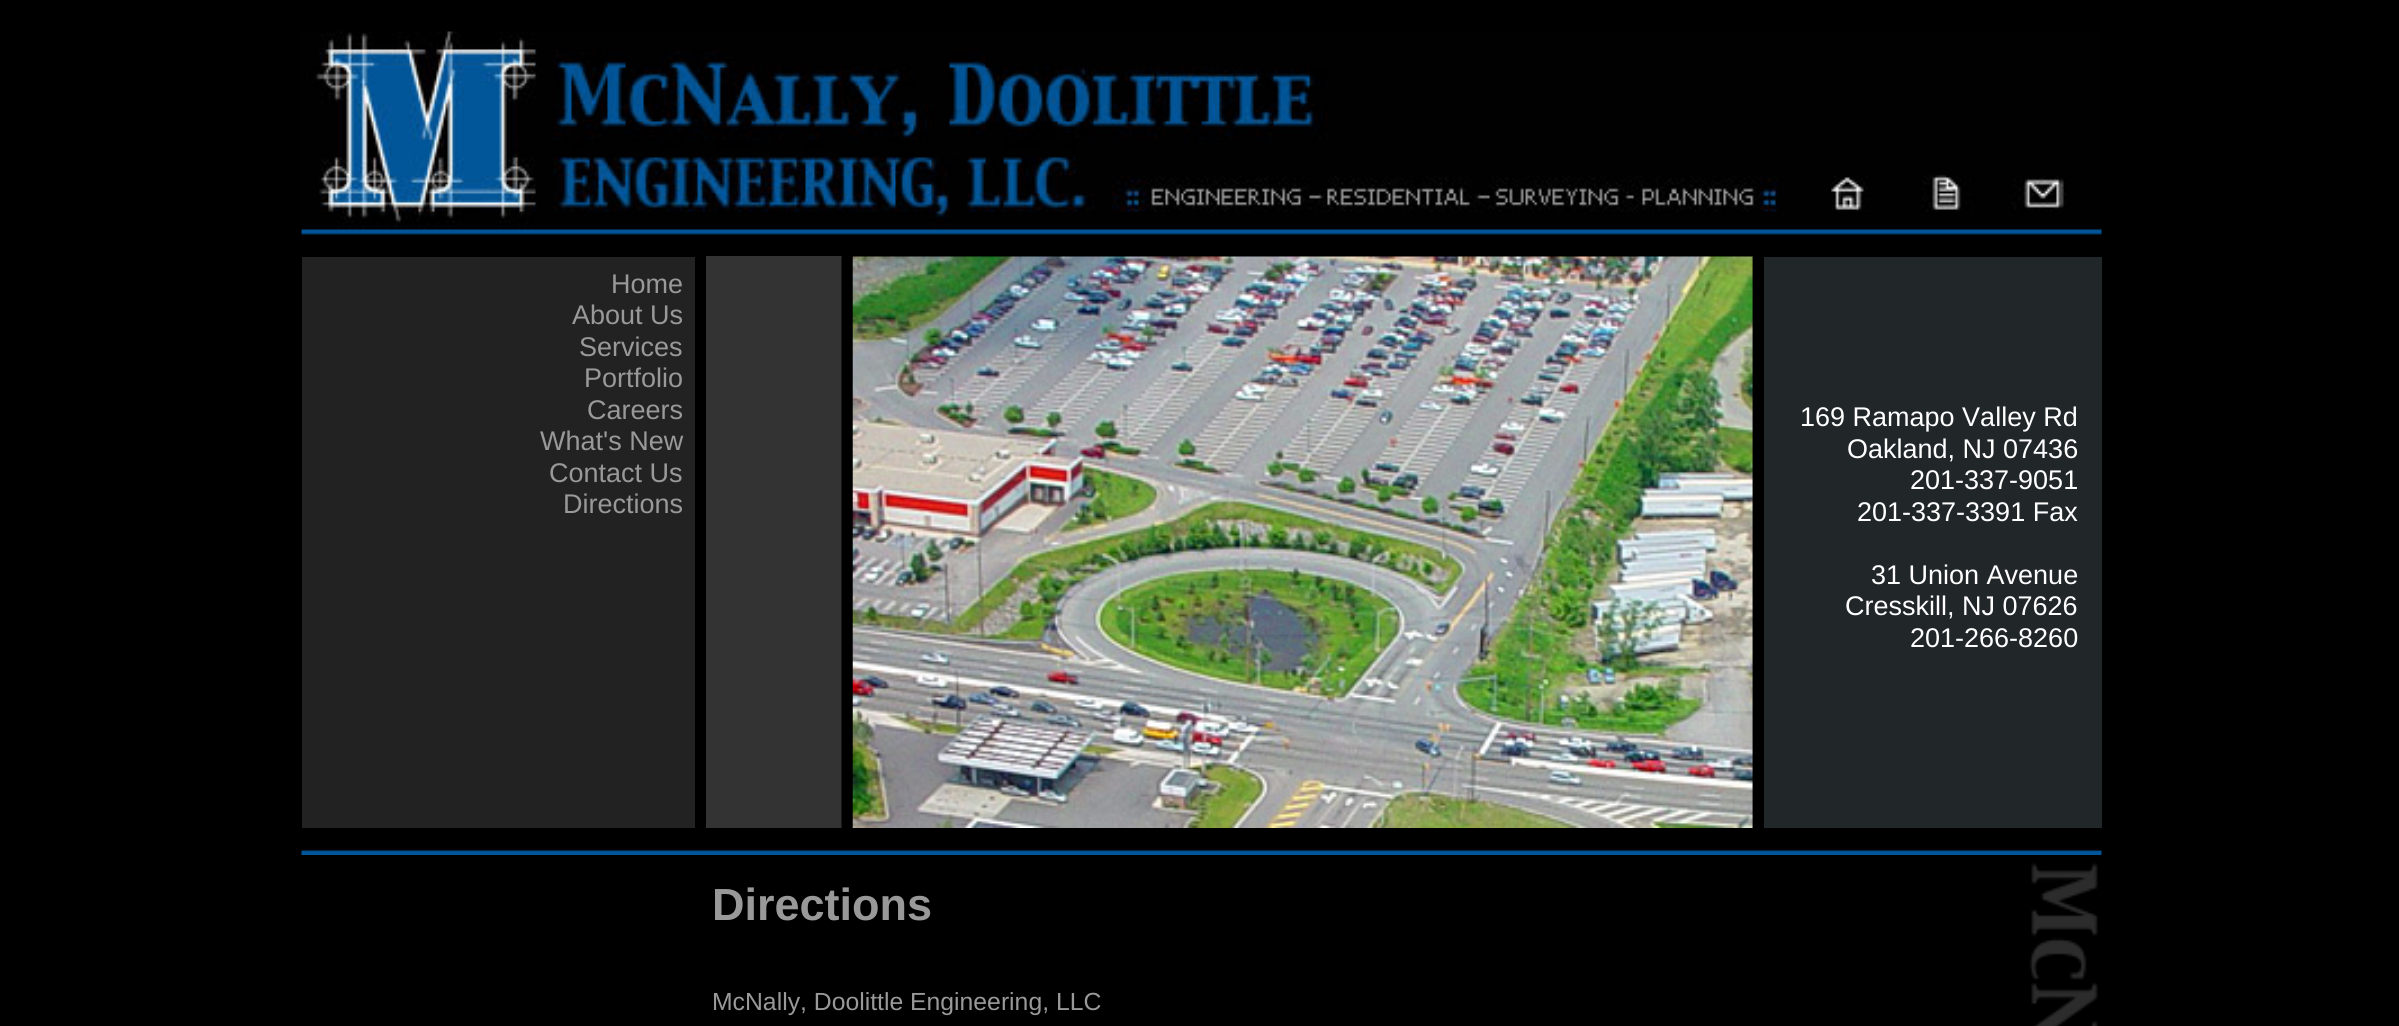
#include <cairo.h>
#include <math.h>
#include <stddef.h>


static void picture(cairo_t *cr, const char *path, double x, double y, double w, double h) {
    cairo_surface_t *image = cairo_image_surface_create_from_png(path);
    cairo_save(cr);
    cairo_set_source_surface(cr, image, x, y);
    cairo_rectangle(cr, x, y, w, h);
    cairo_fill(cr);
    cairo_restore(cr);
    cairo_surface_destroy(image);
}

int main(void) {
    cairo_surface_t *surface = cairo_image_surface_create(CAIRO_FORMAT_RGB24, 2399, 1026);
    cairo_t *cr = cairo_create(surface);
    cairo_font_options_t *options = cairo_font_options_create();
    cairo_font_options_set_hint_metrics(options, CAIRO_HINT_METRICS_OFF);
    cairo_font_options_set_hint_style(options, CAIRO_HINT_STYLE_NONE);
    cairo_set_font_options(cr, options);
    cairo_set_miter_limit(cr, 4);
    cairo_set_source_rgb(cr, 0, 0, 0);
    cairo_paint(cr);
    picture(cr, "img1.png", 301, 31, 1801, 204);
    cairo_set_source_rgb(cr, 0.2, 0.2, 0.2);
    cairo_rectangle(cr, 706, 256, 136, 572);
    cairo_fill(cr);
    picture(cr, "img2.png", 841, 256, 1, 572);
    picture(cr, "img3.png", 852, 256, 901, 572);
    cairo_set_source_rgb(cr, 0.133, 0.133, 0.133);
    cairo_rectangle(cr, 302, 257, 393, 571);
    cairo_fill(cr);
    cairo_select_font_face(cr, "Liberation Sans", CAIRO_FONT_SLANT_NORMAL, CAIRO_FONT_WEIGHT_NORMAL);
    cairo_set_font_size(cr, 27);
    cairo_set_source_rgb(cr, 0.6, 0.6, 0.6);
    cairo_move_to(cr, 611, 293);
    cairo_show_text(cr, "Home");
    cairo_move_to(cr, 572, 324);
    cairo_show_text(cr, "About Us");
    cairo_move_to(cr, 579, 356);
    cairo_show_text(cr, "Services");
    cairo_move_to(cr, 584, 387);
    cairo_show_text(cr, "Portfolio");
    cairo_move_to(cr, 587, 419);
    cairo_show_text(cr, "Careers");
    cairo_move_to(cr, 540, 450);
    cairo_show_text(cr, "What's New");
    cairo_move_to(cr, 549, 482);
    cairo_show_text(cr, "Contact Us");
    cairo_move_to(cr, 563, 513);
    cairo_show_text(cr, "Directions");
    picture(cr, "img4.png", 1752, 256, 1, 572);
    cairo_set_source_rgb(cr, 0.129, 0.149, 0.161);
    cairo_rectangle(cr, 1764, 257, 338, 571);
    cairo_fill(cr);
    cairo_set_source_rgb(cr, 1, 1, 1);
    cairo_move_to(cr, 1800, 426);
    cairo_show_text(cr, "169 Ramapo Valley Rd");
    cairo_move_to(cr, 1847, 458);
    cairo_show_text(cr, "Oakland, NJ 07436");
    cairo_move_to(cr, 1910, 489);
    cairo_show_text(cr, "201-337-9051");
    cairo_move_to(cr, 1857, 521);
    cairo_show_text(cr, "201-337-3391 Fax");
    cairo_move_to(cr, 1871, 584);
    cairo_show_text(cr, "31 Union Avenue");
    cairo_move_to(cr, 1845, 615);
    cairo_show_text(cr, "Cresskill, NJ 07626");
    cairo_move_to(cr, 1910, 647);
    cairo_show_text(cr, "201-266-8260");
    picture(cr, "img5.png", 301, 850, 1801, 5);
    cairo_select_font_face(cr, "Liberation Sans", CAIRO_FONT_SLANT_NORMAL, CAIRO_FONT_WEIGHT_BOLD);
    cairo_set_font_size(cr, 45);
    cairo_set_source_rgb(cr, 0.6, 0.6, 0.6);
    cairo_move_to(cr, 712, 920);
    cairo_show_text(cr, "Directions");
    cairo_select_font_face(cr, "Liberation Sans", CAIRO_FONT_SLANT_NORMAL, CAIRO_FONT_WEIGHT_NORMAL);
    cairo_set_font_size(cr, 24.75);
    cairo_move_to(cr, 712, 1010);
    cairo_show_text(cr, "McNally, Doolittle Engineering, LLC");
    picture(cr, "img6.png", 2029, 863, 69, 163);
    cairo_surface_write_to_png(surface, "page.png");
    cairo_font_options_destroy(options);
    cairo_destroy(cr);
    cairo_surface_destroy(surface);
    return 0;
}
